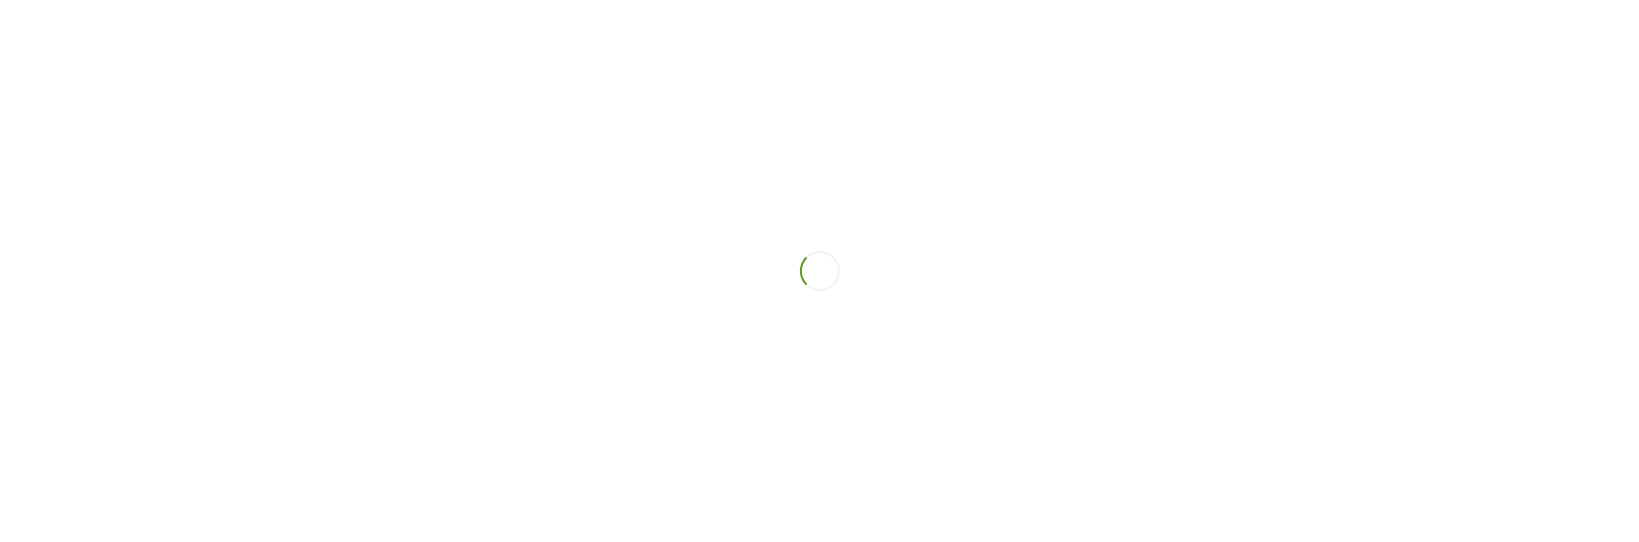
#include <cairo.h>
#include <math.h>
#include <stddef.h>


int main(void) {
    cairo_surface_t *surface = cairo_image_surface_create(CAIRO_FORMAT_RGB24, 1639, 542);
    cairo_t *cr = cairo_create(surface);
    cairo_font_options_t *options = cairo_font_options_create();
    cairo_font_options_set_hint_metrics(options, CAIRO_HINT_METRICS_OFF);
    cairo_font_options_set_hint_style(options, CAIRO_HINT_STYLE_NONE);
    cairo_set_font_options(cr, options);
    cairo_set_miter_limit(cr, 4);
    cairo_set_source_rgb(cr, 1, 1, 1);
    cairo_paint(cr);
    cairo_new_path(cr);
    cairo_move_to(cr, 806.5, 257.5);
    cairo_curve_to(cr, 811, 253, 817.5, 251, 823.5, 252.5);
    cairo_curve_to(cr, 846, 257, 842.5, 290, 820, 290);
    cairo_curve_to(cr, 815, 290, 810, 288, 806.5, 284.5);
    cairo_set_source_rgb(cr, 0.949, 0.949, 0.949);
    cairo_stroke(cr);
    cairo_new_path(cr);
    cairo_move_to(cr, 806.5, 284.5);
    cairo_curve_to(cr, 799, 277, 799, 265, 806.5, 257.5);
    cairo_set_source_rgb(cr, 0.384, 0.588, 0.133);
    cairo_stroke(cr);
    cairo_surface_write_to_png(surface, "page.png");
    cairo_font_options_destroy(options);
    cairo_destroy(cr);
    cairo_surface_destroy(surface);
    return 0;
}
